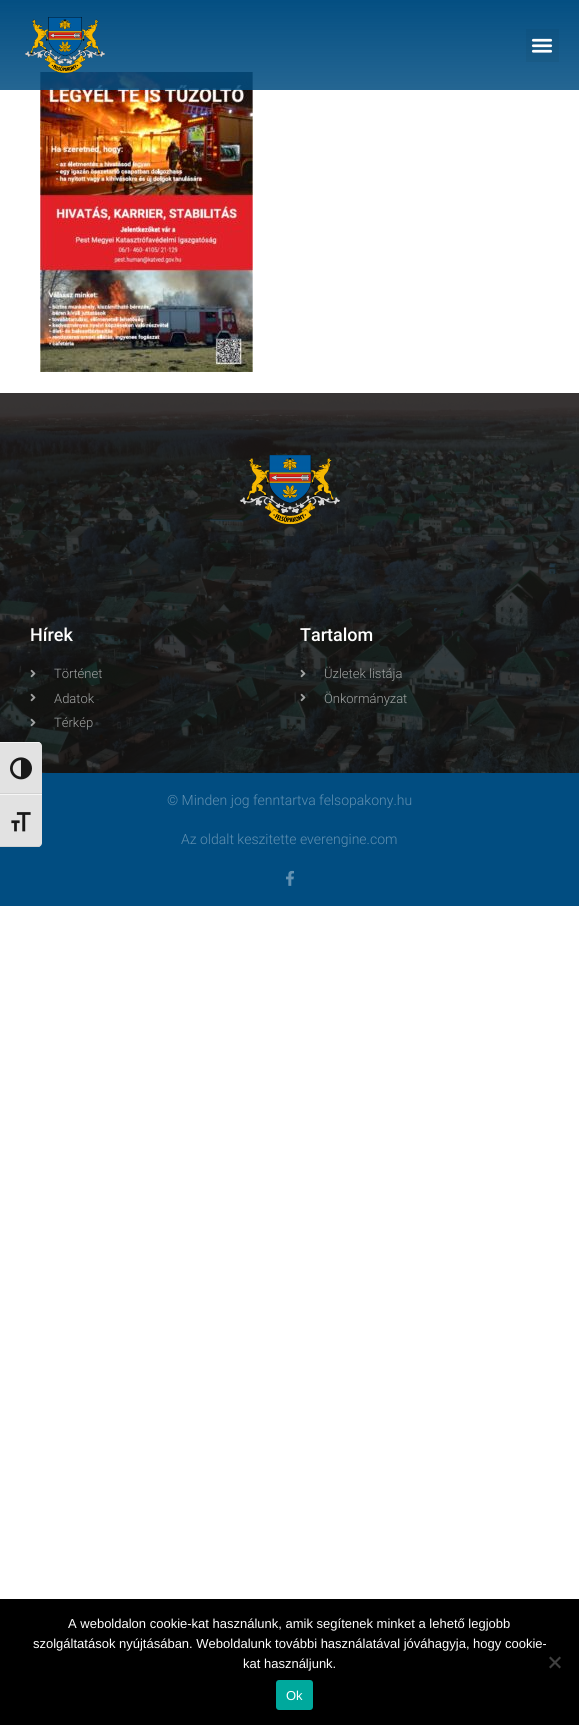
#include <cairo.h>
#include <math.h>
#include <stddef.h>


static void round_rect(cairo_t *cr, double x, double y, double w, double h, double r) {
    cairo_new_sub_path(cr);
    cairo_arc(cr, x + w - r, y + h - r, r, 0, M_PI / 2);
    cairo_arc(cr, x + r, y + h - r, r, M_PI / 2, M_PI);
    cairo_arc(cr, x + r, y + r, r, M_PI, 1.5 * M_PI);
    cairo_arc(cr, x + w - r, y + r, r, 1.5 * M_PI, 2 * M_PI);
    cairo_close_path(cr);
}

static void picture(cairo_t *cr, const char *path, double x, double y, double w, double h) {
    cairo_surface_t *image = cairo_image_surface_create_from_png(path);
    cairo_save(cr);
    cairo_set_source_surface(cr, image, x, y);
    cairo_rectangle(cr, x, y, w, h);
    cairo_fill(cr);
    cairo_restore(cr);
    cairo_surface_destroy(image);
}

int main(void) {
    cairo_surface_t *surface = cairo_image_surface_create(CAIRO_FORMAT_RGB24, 579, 1725);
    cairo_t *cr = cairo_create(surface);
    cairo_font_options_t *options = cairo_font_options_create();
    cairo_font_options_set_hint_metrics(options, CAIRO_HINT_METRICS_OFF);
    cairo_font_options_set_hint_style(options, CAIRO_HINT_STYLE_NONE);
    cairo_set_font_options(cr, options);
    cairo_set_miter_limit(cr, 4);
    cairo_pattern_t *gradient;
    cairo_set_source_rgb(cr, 1, 1, 1);
    cairo_paint(cr);
    picture(cr, "img3.png", 40, 72, 213, 300);
    gradient = cairo_pattern_create_linear(290, 90, 290, 0);
    cairo_pattern_add_color_stop_rgba(gradient, 0, 0.004, 0.302, 0.506, 0.86);
    cairo_pattern_add_color_stop_rgba(gradient, 1, 0.004, 0.302, 0.506, 0.99);
    cairo_set_source(cr, gradient);
    cairo_pattern_destroy(gradient);
    cairo_rectangle(cr, 0, 0, 579, 90);
    cairo_fill(cr);
    picture(cr, "img1.png", 25, 17, 80, 56);
    cairo_set_source_rgba(cr, 0, 0, 0, 0.05);
    cairo_rectangle(cr, 526, 29, 33, 33);
    cairo_fill(cr);
    picture(cr, "img2.png", 531, 38, 22, 15);
    picture(cr, "img6.png", 0, 393, 579, 380);
    cairo_set_source_rgb(cr, 0.004, 0.302, 0.506);
    cairo_rectangle(cr, 0, 773, 579, 133);
    cairo_fill(cr);
    cairo_set_source_rgb(cr, 0.886, 0.886, 0.886);
    cairo_new_path(cr);
    cairo_move_to(cr, 0, 742);
    cairo_line_to(cr, 38, 742);
    cairo_curve_to(cr, 40, 742, 42, 744, 42, 746);
    cairo_line_to(cr, 42, 794);
    cairo_line_to(cr, 0, 794);
    cairo_close_path(cr);
    cairo_fill(cr);
    cairo_set_source_rgb(cr, 0.961, 0.961, 0.961);
    cairo_new_path(cr);
    cairo_move_to(cr, 0, 742);
    cairo_line_to(cr, 0, 743);
    cairo_line_to(cr, 38, 743);
    cairo_curve_to(cr, 40, 743, 42, 744, 42, 746);
    cairo_curve_to(cr, 42, 744, 40, 742, 38, 742);
    cairo_close_path(cr);
    cairo_fill(cr);
    cairo_set_source_rgb(cr, 0.824, 0.824, 0.824);
    cairo_rectangle(cr, 0, 793, 42, 1);
    cairo_fill(cr);
    picture(cr, "img4.png", 10, 757, 22, 23);
    cairo_set_source_rgb(cr, 0.886, 0.886, 0.886);
    cairo_new_path(cr);
    cairo_move_to(cr, 0, 794);
    cairo_line_to(cr, 42, 794);
    cairo_line_to(cr, 42, 843);
    cairo_curve_to(cr, 42, 845, 40, 847, 38, 847);
    cairo_line_to(cr, 0, 847);
    cairo_close_path(cr);
    cairo_fill(cr);
    cairo_set_source_rgb(cr, 0.961, 0.961, 0.961);
    cairo_rectangle(cr, 0, 794, 42, 1);
    cairo_fill(cr);
    cairo_set_source_rgb(cr, 0.824, 0.824, 0.824);
    cairo_new_path(cr);
    cairo_move_to(cr, 0, 846);
    cairo_line_to(cr, 0, 847);
    cairo_line_to(cr, 38, 847);
    cairo_curve_to(cr, 40, 847, 42, 845, 42, 843);
    cairo_curve_to(cr, 42, 845, 40, 846, 38, 846);
    cairo_close_path(cr);
    cairo_fill(cr);
    picture(cr, "img5.png", 11, 812, 20, 20);
    picture(cr, "img7.png", 240, 455, 100, 69);
    cairo_select_font_face(cr, "Roboto Medium", CAIRO_FONT_SLANT_NORMAL, CAIRO_FONT_WEIGHT_NORMAL);
    cairo_set_font_size(cr, 18);
    cairo_set_source_rgb(cr, 1, 1, 1);
    cairo_move_to(cr, 30, 641);
    cairo_show_text(cr, "Hírek");
    picture(cr, "img8.png", 30, 669, 6, 9);
    cairo_select_font_face(cr, "Roboto Light", CAIRO_FONT_SLANT_NORMAL, CAIRO_FONT_WEIGHT_NORMAL);
    cairo_set_font_size(cr, 13);
    cairo_set_source_rgb(cr, 0.631, 0.643, 0.639);
    cairo_move_to(cr, 54, 678);
    cairo_show_text(cr, "Történet");
    picture(cr, "img9.png", 30, 693, 6, 9);
    cairo_move_to(cr, 54, 703);
    cairo_show_text(cr, "Adatok");
    picture(cr, "img10.png", 30, 718, 6, 9);
    cairo_move_to(cr, 54, 727);
    cairo_show_text(cr, "Térkép");
    cairo_select_font_face(cr, "Roboto Medium", CAIRO_FONT_SLANT_NORMAL, CAIRO_FONT_WEIGHT_NORMAL);
    cairo_set_font_size(cr, 18);
    cairo_set_source_rgb(cr, 1, 1, 1);
    cairo_move_to(cr, 300, 641);
    cairo_show_text(cr, "Tartalom");
    picture(cr, "img11.png", 300, 669, 6, 9);
    cairo_select_font_face(cr, "Roboto Light", CAIRO_FONT_SLANT_NORMAL, CAIRO_FONT_WEIGHT_NORMAL);
    cairo_set_font_size(cr, 13);
    cairo_set_source_rgb(cr, 0.631, 0.643, 0.639);
    cairo_move_to(cr, 324, 678);
    cairo_show_text(cr, "Üzletek listája");
    picture(cr, "img12.png", 300, 693, 6, 9);
    cairo_move_to(cr, 324, 703);
    cairo_show_text(cr, "Önkormányzat");
    cairo_set_font_size(cr, 14);
    cairo_set_source_rgb(cr, 0.373, 0.561, 0.69);
    cairo_move_to(cr, 167, 805);
    cairo_show_text(cr, "© Minden jog fenntartva felsopakony.hu");
    cairo_move_to(cr, 181, 844);
    cairo_show_text(cr, "Az oldalt keszitette everengine.com");
    picture(cr, "img13.png", 286, 870, 8, 16);
    cairo_set_source_rgb(cr, 0, 0, 0);
    cairo_rectangle(cr, 0, 1599, 579, 126);
    cairo_fill(cr);
    cairo_select_font_face(cr, "Liberation Sans", CAIRO_FONT_SLANT_NORMAL, CAIRO_FONT_WEIGHT_NORMAL);
    cairo_set_font_size(cr, 13);
    cairo_set_source_rgb(cr, 1, 1, 1);
    cairo_move_to(cr, 68, 1628);
    cairo_show_text(cr, "A weboldalon cookie-kat használunk, amik segítenek minket a lehető legjobb");
    cairo_move_to(cr, 33, 1648);
    cairo_show_text(cr, "szolgáltatások nyújtásában. Weboldalunk további használatával jóváhagyja, hogy cookie-");
    cairo_move_to(cr, 243, 1668);
    cairo_show_text(cr, "kat használjunk.");
    cairo_set_source_rgb(cr, 0.251, 0.251, 0.251);
    cairo_new_path(cr);
    cairo_move_to(cr, 559.5, 1656.5);
    cairo_line_to(cr, 561, 1658);
    cairo_line_to(cr, 550.5, 1668.5);
    cairo_line_to(cr, 549, 1667);
    cairo_close_path(cr);
    cairo_fill(cr);
    cairo_new_path(cr);
    cairo_move_to(cr, 549, 1658);
    cairo_line_to(cr, 550.5, 1656.5);
    cairo_line_to(cr, 561, 1667);
    cairo_line_to(cr, 559.5, 1668.5);
    cairo_close_path(cr);
    cairo_fill(cr);
    cairo_set_source_rgb(cr, 0, 0.663, 0.616);
    round_rect(cr, 276, 1680, 37, 30, 3);
    cairo_fill(cr);
    cairo_set_source_rgb(cr, 1, 1, 1);
    cairo_move_to(cr, 286, 1700);
    cairo_show_text(cr, "Ok");
    cairo_surface_write_to_png(surface, "page.png");
    cairo_font_options_destroy(options);
    cairo_destroy(cr);
    cairo_surface_destroy(surface);
    return 0;
}
